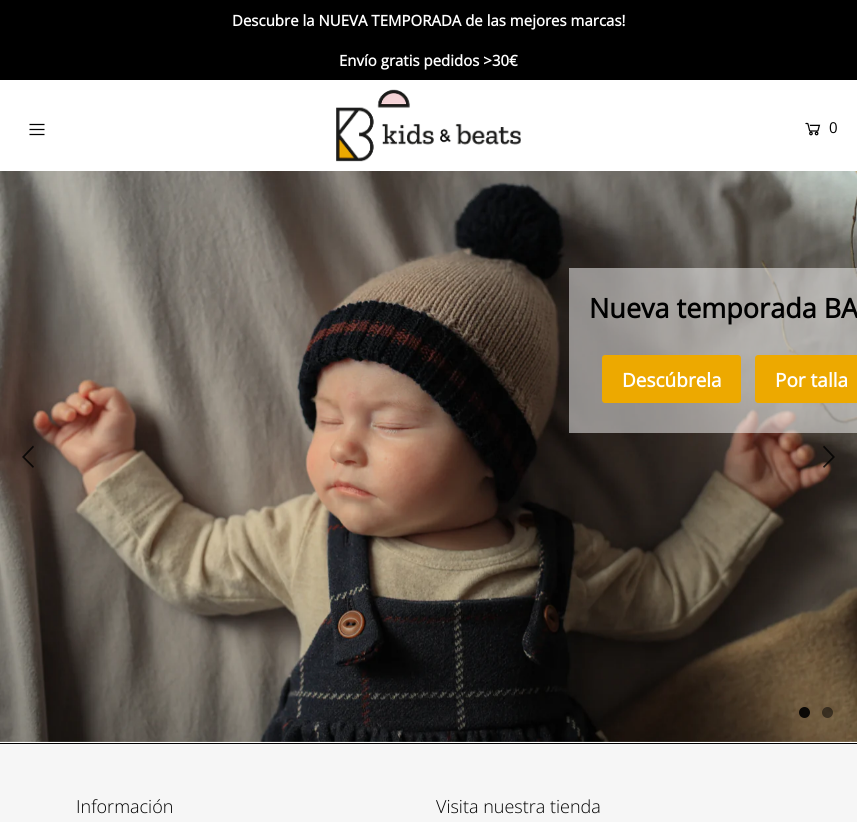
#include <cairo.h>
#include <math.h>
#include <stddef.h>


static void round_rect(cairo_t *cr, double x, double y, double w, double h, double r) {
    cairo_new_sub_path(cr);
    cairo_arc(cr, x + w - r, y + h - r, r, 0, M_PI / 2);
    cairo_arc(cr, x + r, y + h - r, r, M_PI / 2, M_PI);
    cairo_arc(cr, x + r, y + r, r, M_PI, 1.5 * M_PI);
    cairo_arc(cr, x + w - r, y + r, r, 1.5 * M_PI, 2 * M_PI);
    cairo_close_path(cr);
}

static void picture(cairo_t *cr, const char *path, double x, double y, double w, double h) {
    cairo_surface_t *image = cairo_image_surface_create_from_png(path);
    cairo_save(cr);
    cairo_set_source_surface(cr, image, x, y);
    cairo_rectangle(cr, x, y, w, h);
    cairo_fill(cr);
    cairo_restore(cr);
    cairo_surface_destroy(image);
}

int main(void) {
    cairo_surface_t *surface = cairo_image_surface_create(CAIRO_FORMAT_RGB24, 857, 822);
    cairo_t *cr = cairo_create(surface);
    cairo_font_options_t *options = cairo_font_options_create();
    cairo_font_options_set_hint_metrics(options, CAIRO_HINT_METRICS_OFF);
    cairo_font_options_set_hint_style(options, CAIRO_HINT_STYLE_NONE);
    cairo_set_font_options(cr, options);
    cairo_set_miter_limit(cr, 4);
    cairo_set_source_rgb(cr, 1, 1, 1);
    cairo_paint(cr);
    cairo_set_source_rgb(cr, 0, 0, 0);
    cairo_rectangle(cr, 0, 0, 857, 80);
    cairo_fill(cr);
    cairo_select_font_face(cr, "Open Sans", CAIRO_FONT_SLANT_NORMAL, CAIRO_FONT_WEIGHT_BOLD);
    cairo_set_font_size(cr, 15);
    cairo_set_source_rgb(cr, 1, 1, 1);
    cairo_move_to(cr, 232, 26);
    cairo_show_text(cr, "Descubre la NUEVA TEMPORADA de las mejores marcas!");
    cairo_move_to(cr, 339, 66);
    cairo_show_text(cr, "Envío gratis pedidos >30€");
    picture(cr, "img1.png", 29, 123, 16, 13);
    picture(cr, "img2.png", 336, 89, 185, 73);
    picture(cr, "img3.png", 805, 122, 16, 14);
    cairo_select_font_face(cr, "Open Sans", CAIRO_FONT_SLANT_NORMAL, CAIRO_FONT_WEIGHT_NORMAL);
    cairo_set_source_rgb(cr, 0, 0, 0);
    cairo_move_to(cr, 829, 133);
    cairo_show_text(cr, "0");
    picture(cr, "img4.png", 0, 171, 857, 571);
    cairo_set_source_rgba(cr, 1, 1, 1, 0.5);
    cairo_rectangle(cr, 569, 268, 288, 165);
    cairo_fill(cr);
    cairo_select_font_face(cr, "Open Sans", CAIRO_FONT_SLANT_NORMAL, CAIRO_FONT_WEIGHT_BOLD);
    cairo_set_font_size(cr, 27);
    cairo_set_source_rgb(cr, 0, 0, 0);
    cairo_move_to(cr, 589, 318);
    cairo_show_text(cr, "Nueva temporada BA");
    cairo_set_source_rgb(cr, 0.929, 0.663, 0);
    round_rect(cr, 602, 355, 139, 48, 3);
    cairo_fill(cr);
    cairo_set_font_size(cr, 19);
    cairo_set_source_rgb(cr, 1, 1, 1);
    cairo_move_to(cr, 622, 387);
    cairo_show_text(cr, "Descúbrela");
    cairo_set_source_rgb(cr, 0.929, 0.663, 0);
    cairo_new_path(cr);
    cairo_move_to(cr, 758, 355);
    cairo_line_to(cr, 857, 355);
    cairo_line_to(cr, 857, 403);
    cairo_line_to(cr, 758, 403);
    cairo_curve_to(cr, 756.5, 403, 755, 401.5, 755, 400);
    cairo_line_to(cr, 755, 358);
    cairo_curve_to(cr, 755, 356.5, 756.5, 355, 758, 355);
    cairo_close_path(cr);
    cairo_fill(cr);
    cairo_set_source_rgb(cr, 1, 1, 1);
    cairo_move_to(cr, 775, 387);
    cairo_show_text(cr, "Por talla");
    cairo_set_source_rgba(cr, 0, 0, 0, 0.8);
    cairo_new_path(cr);
    cairo_move_to(cr, 33, 445.5);
    cairo_line_to(cr, 34, 447);
    cairo_line_to(cr, 24.5, 457);
    cairo_line_to(cr, 34, 466.5);
    cairo_line_to(cr, 33, 468);
    cairo_line_to(cr, 22, 457);
    cairo_close_path(cr);
    cairo_fill(cr);
    cairo_new_path(cr);
    cairo_move_to(cr, 824, 445.5);
    cairo_line_to(cr, 835, 457);
    cairo_line_to(cr, 824, 468);
    cairo_line_to(cr, 823, 466.5);
    cairo_line_to(cr, 832.5, 457);
    cairo_line_to(cr, 823, 447);
    cairo_close_path(cr);
    cairo_fill(cr);
    cairo_set_source_rgba(cr, 0, 0, 0, 0.9);
    cairo_arc(cr, 804.5, 712.5, 5.5, 0, 2 * M_PI);
    cairo_fill(cr);
    cairo_set_source_rgba(cr, 0, 0, 0, 0.5);
    cairo_arc(cr, 827.5, 712.5, 5.5, 0, 2 * M_PI);
    cairo_fill(cr);
    cairo_set_source_rgb(cr, 0.961, 0.961, 0.961);
    cairo_rectangle(cr, 0, 744, 857, 78);
    cairo_fill(cr);
    cairo_set_source_rgb(cr, 0, 0, 0);
    cairo_rectangle(cr, 0, 743, 857, 1);
    cairo_fill(cr);
    cairo_select_font_face(cr, "Open Sans Light", CAIRO_FONT_SLANT_NORMAL, CAIRO_FONT_WEIGHT_NORMAL);
    cairo_set_font_size(cr, 18);
    cairo_move_to(cr, 76, 813);
    cairo_show_text(cr, "Información");
    cairo_move_to(cr, 436, 813);
    cairo_show_text(cr, "Visita nuestra tienda");
    cairo_surface_write_to_png(surface, "page.png");
    cairo_font_options_destroy(options);
    cairo_destroy(cr);
    cairo_surface_destroy(surface);
    return 0;
}
